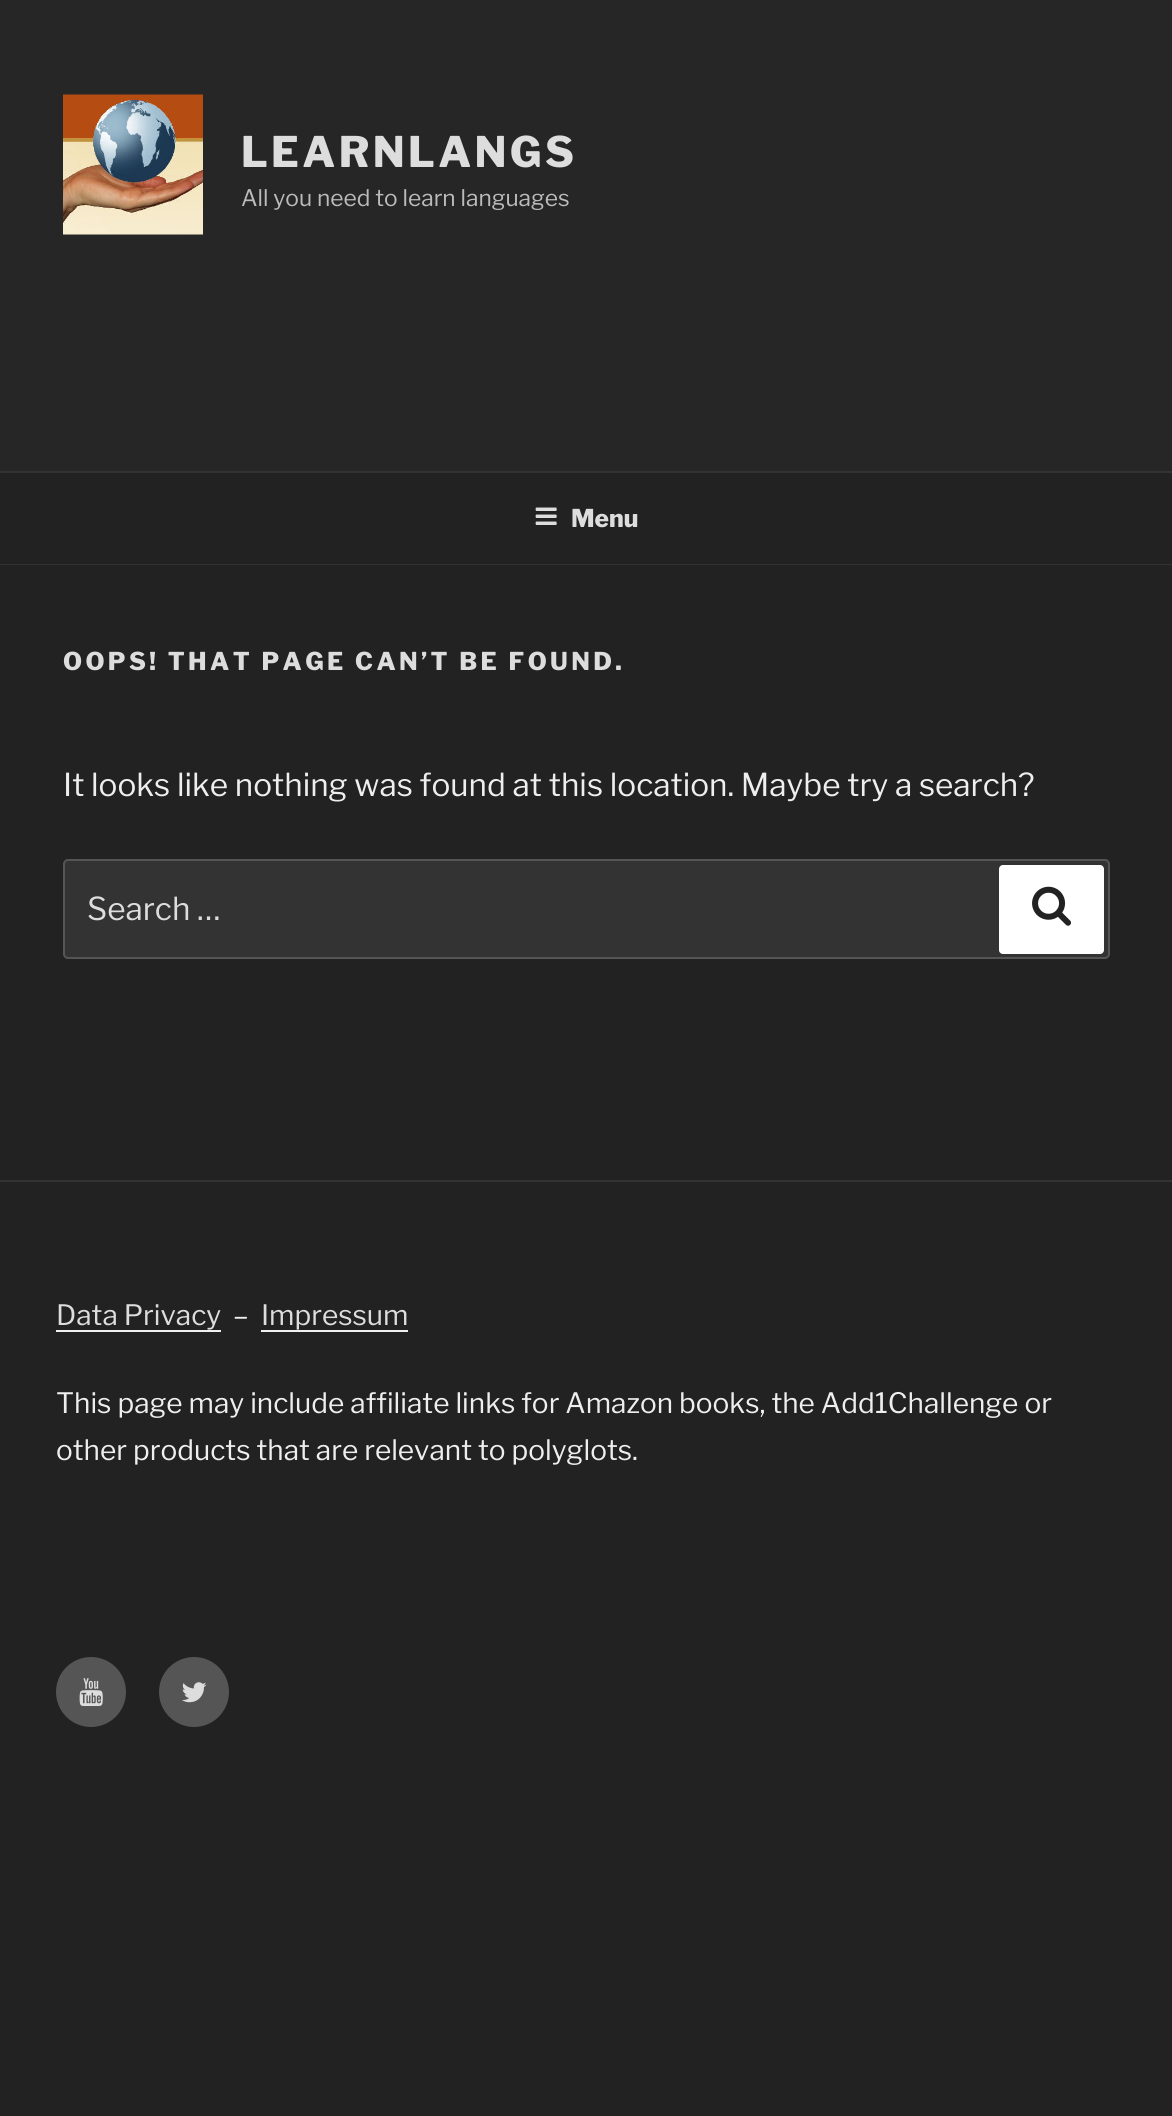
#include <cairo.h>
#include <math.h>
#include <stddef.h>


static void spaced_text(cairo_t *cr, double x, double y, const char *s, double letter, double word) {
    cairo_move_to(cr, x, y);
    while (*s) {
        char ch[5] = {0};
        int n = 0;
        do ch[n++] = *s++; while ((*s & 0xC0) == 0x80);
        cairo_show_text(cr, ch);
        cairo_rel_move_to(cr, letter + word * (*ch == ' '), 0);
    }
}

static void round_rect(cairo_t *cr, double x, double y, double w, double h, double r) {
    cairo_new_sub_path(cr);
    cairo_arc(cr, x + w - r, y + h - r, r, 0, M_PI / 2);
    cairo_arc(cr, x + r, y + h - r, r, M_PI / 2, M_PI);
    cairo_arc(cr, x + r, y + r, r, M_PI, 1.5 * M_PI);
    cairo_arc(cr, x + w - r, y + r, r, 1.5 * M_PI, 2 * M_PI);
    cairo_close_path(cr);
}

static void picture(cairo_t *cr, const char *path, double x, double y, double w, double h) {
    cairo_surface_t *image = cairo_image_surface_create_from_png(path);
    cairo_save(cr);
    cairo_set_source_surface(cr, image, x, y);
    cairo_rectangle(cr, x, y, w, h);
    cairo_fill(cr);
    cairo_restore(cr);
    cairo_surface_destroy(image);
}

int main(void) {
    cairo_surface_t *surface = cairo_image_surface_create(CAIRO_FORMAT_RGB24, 1172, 2116);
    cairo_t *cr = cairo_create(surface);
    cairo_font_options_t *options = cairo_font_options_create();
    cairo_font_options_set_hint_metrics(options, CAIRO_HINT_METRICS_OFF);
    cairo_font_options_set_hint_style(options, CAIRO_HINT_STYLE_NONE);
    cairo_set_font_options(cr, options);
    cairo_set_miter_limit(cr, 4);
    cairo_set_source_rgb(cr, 0.133, 0.133, 0.133);
    cairo_paint(cr);
    cairo_set_source_rgb(cr, 0.149, 0.149, 0.149);
    cairo_rectangle(cr, 0, 0, 1172, 471);
    cairo_fill(cr);
    picture(cr, "img1.png", 63, 94, 140, 141);
    cairo_select_font_face(cr, "Libre Franklin ExtraBold", CAIRO_FONT_SLANT_NORMAL, CAIRO_FONT_WEIGHT_NORMAL);
    cairo_set_font_size(cr, 42);
    cairo_set_source_rgb(cr, 0.867, 0.867, 0.867);
    spaced_text(cr, 241, 167, "LEARNLANGS", 3.4, 0);
    cairo_select_font_face(cr, "Libre Franklin", CAIRO_FONT_SLANT_NORMAL, CAIRO_FONT_WEIGHT_NORMAL);
    cairo_set_font_size(cr, 22.75);
    cairo_set_source_rgb(cr, 0.733, 0.733, 0.733);
    cairo_move_to(cr, 241, 206);
    cairo_show_text(cr, "All you need to learn languages");
    cairo_set_source_rgb(cr, 0.2, 0.2, 0.2);
    cairo_rectangle(cr, 0, 471, 1172, 2);
    cairo_fill(cr);
    cairo_rectangle(cr, 0, 564, 1172, 1);
    cairo_fill(cr);
    picture(cr, "img2.png", 535, 507, 22, 18);
    cairo_select_font_face(cr, "Libre Franklin ExtraBold", CAIRO_FONT_SLANT_NORMAL, CAIRO_FONT_WEIGHT_NORMAL);
    cairo_set_font_size(cr, 24.5);
    cairo_set_source_rgb(cr, 0.867, 0.867, 0.867);
    cairo_move_to(cr, 571, 527);
    cairo_show_text(cr, "Menu");
    spaced_text(cr, 63, 670, "OOPS! THAT PAGE CAN’T BE FOUND.", 3.4, 0);
    cairo_select_font_face(cr, "Libre Franklin", CAIRO_FONT_SLANT_NORMAL, CAIRO_FONT_WEIGHT_NORMAL);
    cairo_set_font_size(cr, 31.5);
    cairo_set_source_rgb(cr, 0.933, 0.933, 0.933);
    cairo_move_to(cr, 63, 796);
    cairo_show_text(cr, "It looks like nothing was found at this location. Maybe try a search?");
    cairo_set_source_rgb(cr, 0.2, 0.2, 0.2);
    round_rect(cr, 64, 860, 1045, 98, 4);
    cairo_fill_preserve(cr);
    cairo_set_source_rgb(cr, 0.333, 0.333, 0.333);
    cairo_stroke(cr);
    cairo_set_source_rgb(cr, 0.867, 0.867, 0.867);
    cairo_move_to(cr, 87, 920);
    cairo_show_text(cr, "Search …");
    cairo_set_source_rgb(cr, 1, 1, 1);
    round_rect(cr, 999, 865, 105, 89, 4);
    cairo_fill(cr);
    picture(cr, "img3.png", 1032, 886, 39, 40);
    cairo_set_source_rgb(cr, 0.2, 0.2, 0.2);
    cairo_rectangle(cr, 0, 1180, 1172, 2);
    cairo_fill(cr);
    cairo_set_font_size(cr, 28);
    cairo_set_source_rgb(cr, 0.867, 0.867, 0.867);
    cairo_move_to(cr, 56, 1325);
    cairo_show_text(cr, "Data Privacy");
    cairo_set_source_rgb(cr, 0.941, 0.941, 0.941);
    cairo_rectangle(cr, 56, 1330, 165, 2);
    cairo_fill(cr);
    cairo_set_source_rgb(cr, 0.933, 0.933, 0.933);
    cairo_move_to(cr, 233, 1325);
    cairo_show_text(cr, "–");
    cairo_set_source_rgb(cr, 0.867, 0.867, 0.867);
    cairo_move_to(cr, 261, 1325);
    cairo_show_text(cr, "Impressum");
    cairo_set_source_rgb(cr, 0.941, 0.941, 0.941);
    cairo_rectangle(cr, 261, 1330, 147, 2);
    cairo_fill(cr);
    cairo_set_source_rgb(cr, 0.933, 0.933, 0.933);
    cairo_move_to(cr, 56, 1413);
    cairo_show_text(cr, "This page may include affiliate links for Amazon books, the Add1Challenge or");
    cairo_move_to(cr, 56, 1460);
    cairo_show_text(cr, "other products that are relevant to polyglots.");
    cairo_set_source_rgb(cr, 0.333, 0.333, 0.333);
    cairo_new_path(cr);
    cairo_arc(cr, 91, 1692, 35, 0, 2 * M_PI);
    cairo_fill(cr);
    picture(cr, "img4.png", 79, 1678, 24, 28);
    cairo_arc(cr, 194, 1692, 35, 0, 2 * M_PI);
    cairo_fill(cr);
    picture(cr, "img5.png", 182, 1682, 25, 21);
    cairo_surface_write_to_png(surface, "page.png");
    cairo_font_options_destroy(options);
    cairo_destroy(cr);
    cairo_surface_destroy(surface);
    return 0;
}
